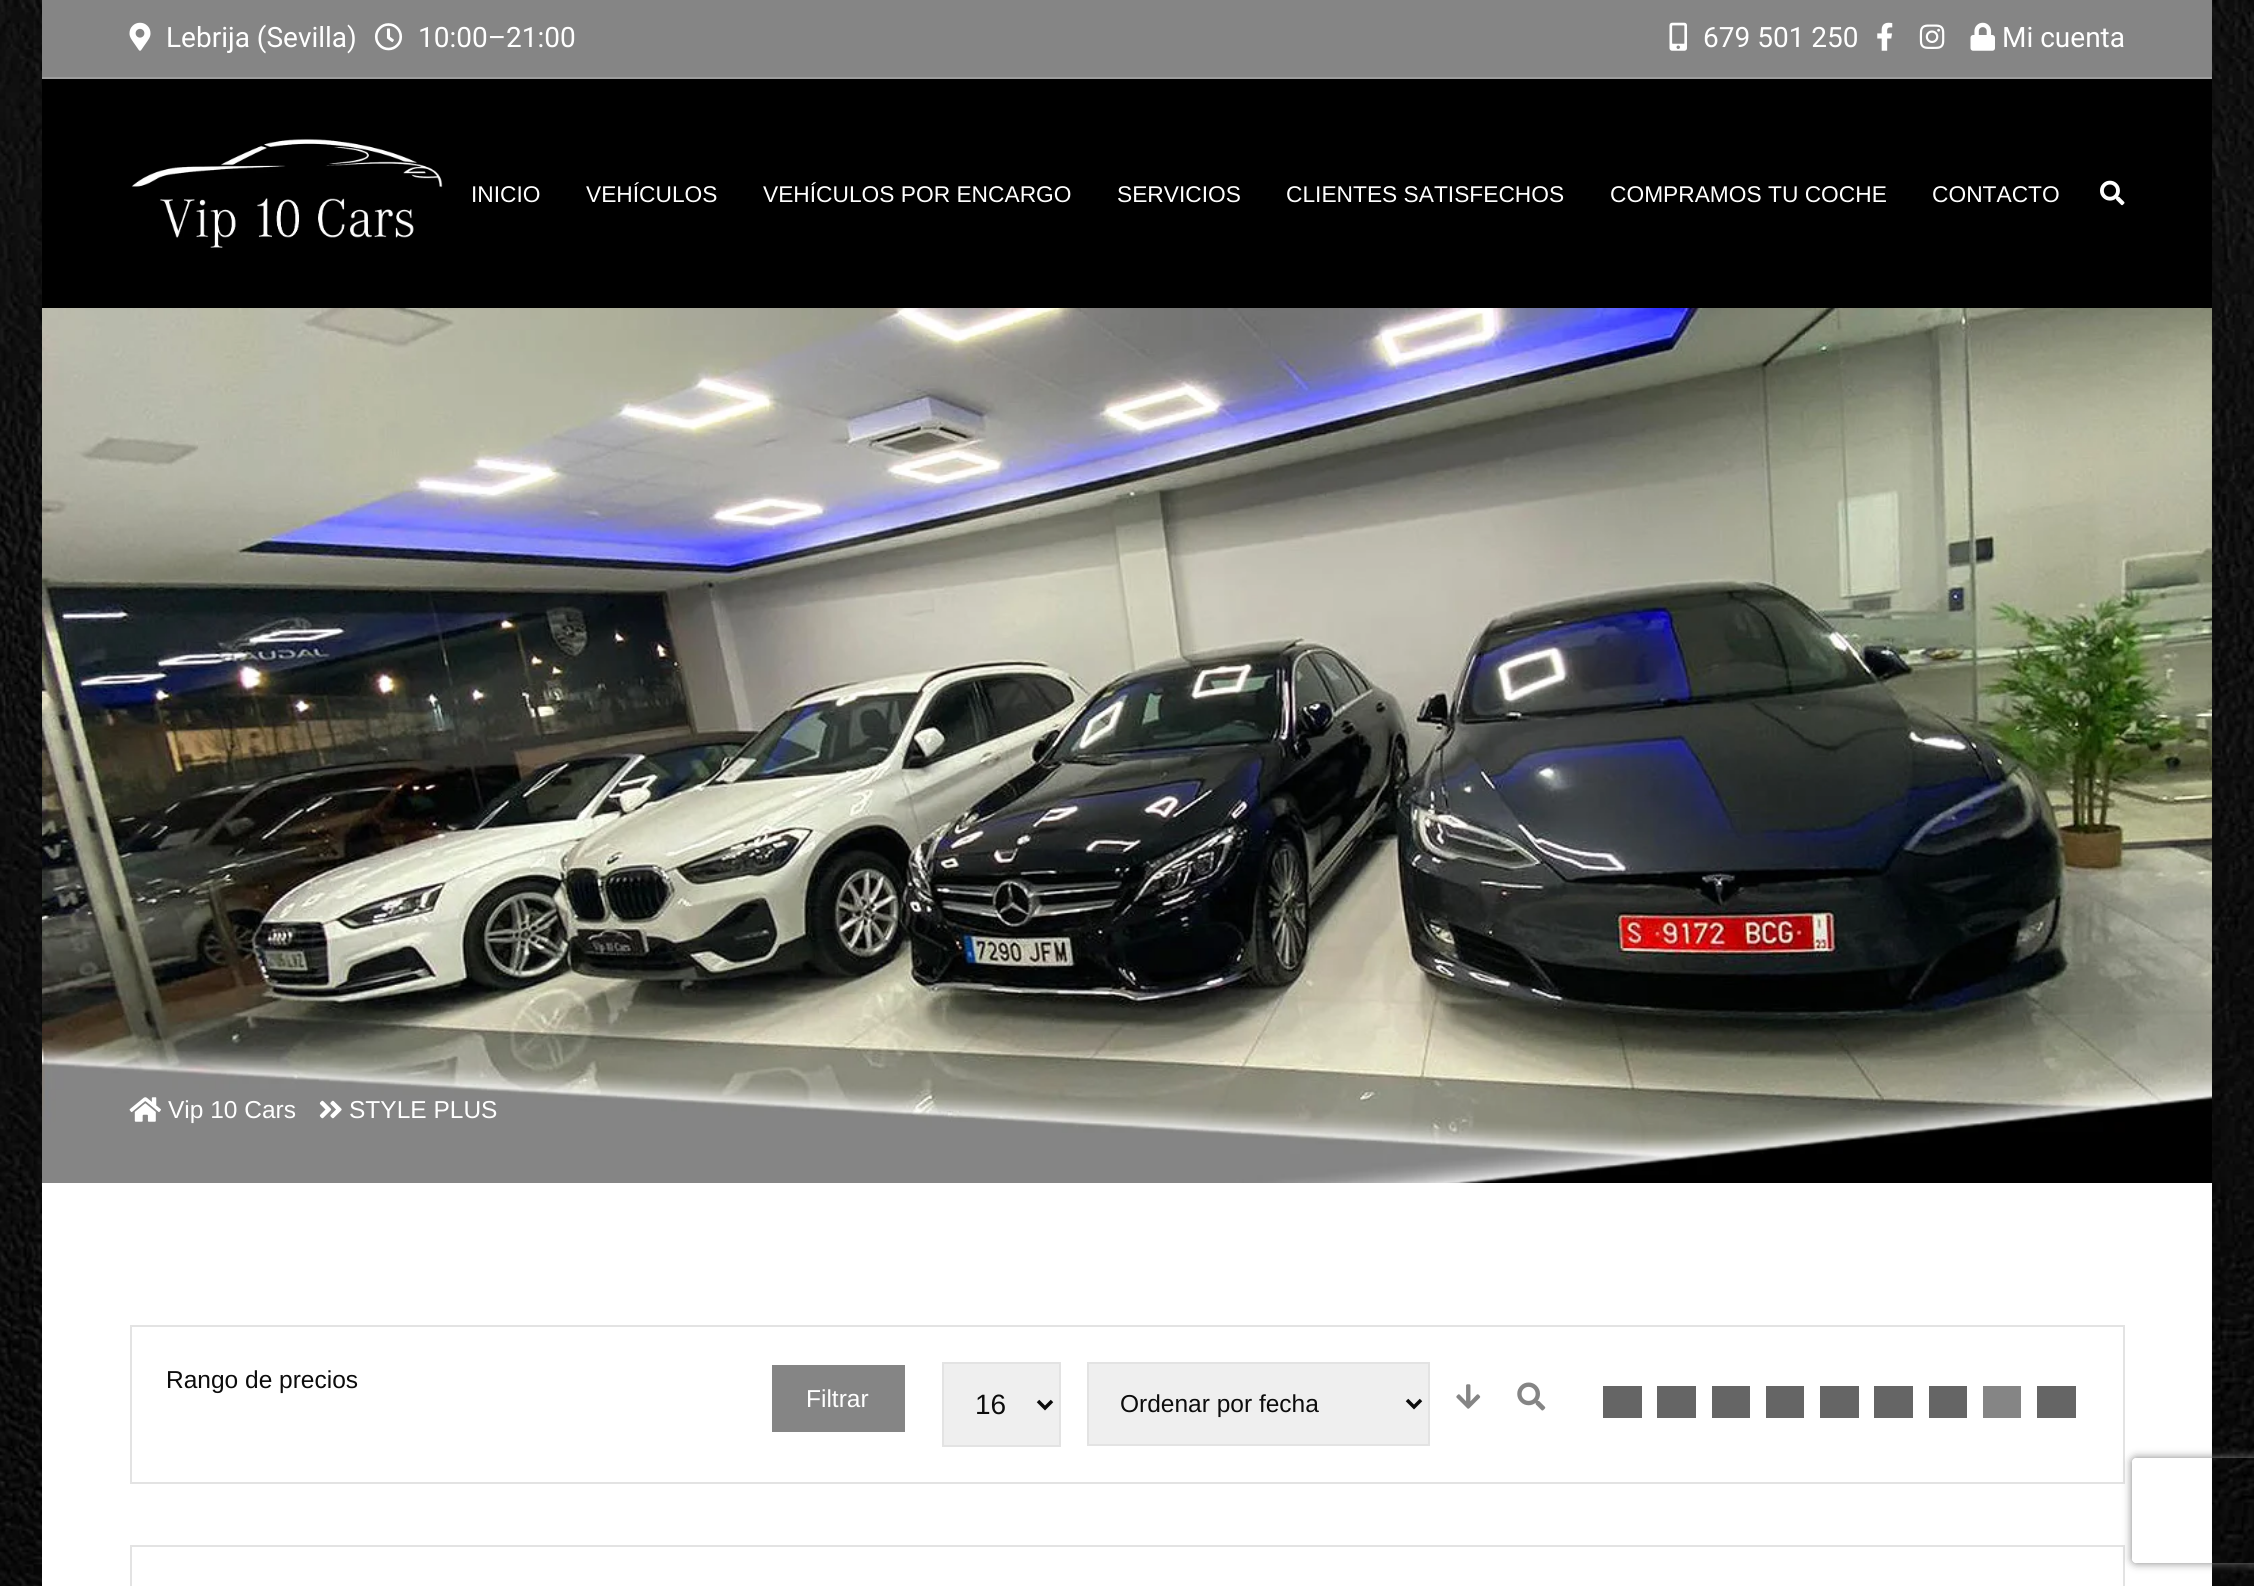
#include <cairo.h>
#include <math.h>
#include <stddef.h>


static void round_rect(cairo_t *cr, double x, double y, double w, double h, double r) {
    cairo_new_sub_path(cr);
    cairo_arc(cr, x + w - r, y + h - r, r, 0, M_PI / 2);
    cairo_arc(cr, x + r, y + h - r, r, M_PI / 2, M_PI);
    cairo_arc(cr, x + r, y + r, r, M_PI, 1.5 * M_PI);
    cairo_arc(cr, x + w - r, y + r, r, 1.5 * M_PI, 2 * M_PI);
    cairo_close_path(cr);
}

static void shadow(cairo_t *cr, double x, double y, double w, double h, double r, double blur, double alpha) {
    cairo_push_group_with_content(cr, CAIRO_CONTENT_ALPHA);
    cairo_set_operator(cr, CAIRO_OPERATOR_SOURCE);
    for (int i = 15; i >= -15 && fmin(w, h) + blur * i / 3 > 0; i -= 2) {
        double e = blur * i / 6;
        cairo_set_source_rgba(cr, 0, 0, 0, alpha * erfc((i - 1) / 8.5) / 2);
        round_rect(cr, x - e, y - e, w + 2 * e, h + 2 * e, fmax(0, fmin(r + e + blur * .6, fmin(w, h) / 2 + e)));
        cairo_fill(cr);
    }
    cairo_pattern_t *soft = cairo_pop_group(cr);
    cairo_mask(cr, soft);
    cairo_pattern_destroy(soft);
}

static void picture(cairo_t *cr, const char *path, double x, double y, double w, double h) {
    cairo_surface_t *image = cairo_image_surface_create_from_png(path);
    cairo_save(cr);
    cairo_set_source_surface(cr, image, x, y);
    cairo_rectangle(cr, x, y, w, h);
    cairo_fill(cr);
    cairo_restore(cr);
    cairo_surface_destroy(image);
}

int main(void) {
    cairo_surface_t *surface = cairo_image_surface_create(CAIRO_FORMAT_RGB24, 2254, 1586);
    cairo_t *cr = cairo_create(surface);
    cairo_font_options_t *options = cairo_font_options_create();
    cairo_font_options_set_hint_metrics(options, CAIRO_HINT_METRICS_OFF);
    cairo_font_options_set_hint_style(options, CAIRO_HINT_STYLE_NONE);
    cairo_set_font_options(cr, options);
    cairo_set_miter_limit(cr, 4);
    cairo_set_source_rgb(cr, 1, 1, 1);
    cairo_paint(cr);
    picture(cr, "img1.png", 0, 0, 2254, 1586);
    cairo_set_source_rgb(cr, 0, 0, 0);
    shadow(cr, 40, 4, 2163, 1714, 0, 44, 0.14);
    cairo_set_source_rgb(cr, 1, 1, 1);
    cairo_rectangle(cr, 42, 1183, 2170, 403);
    cairo_fill(cr);
    cairo_set_source_rgb(cr, 0, 0, 0);
    cairo_rectangle(cr, 42, 79, 2170, 229);
    cairo_fill(cr);
    cairo_set_source_rgb(cr, 0.522, 0.522, 0.522);
    cairo_rectangle(cr, 42, 0, 2170, 77);
    cairo_fill(cr);
    cairo_set_source_rgb(cr, 0.616, 0.616, 0.616);
    cairo_rectangle(cr, 42, 77, 2170, 2);
    cairo_fill(cr);
    picture(cr, "img2.png", 129, 22, 22, 29);
    cairo_select_font_face(cr, "Roboto", CAIRO_FONT_SLANT_NORMAL, CAIRO_FONT_WEIGHT_NORMAL);
    cairo_set_font_size(cr, 28);
    cairo_set_source_rgb(cr, 1, 1, 1);
    cairo_move_to(cr, 166, 47);
    cairo_show_text(cr, "Lebrija (Sevilla)");
    picture(cr, "img3.png", 374, 23, 29, 28);
    cairo_move_to(cr, 418, 47);
    cairo_show_text(cr, "10:00–21:00");
    picture(cr, "img4.png", 1669, 22, 18, 29);
    cairo_move_to(cr, 1703, 47);
    cairo_show_text(cr, "679 501 250");
    picture(cr, "img5.png", 1877, 22, 16, 29);
    picture(cr, "img6.png", 1919, 24, 26, 25);
    picture(cr, "img7.png", 1970, 22, 25, 29);
    cairo_move_to(cr, 2002, 47);
    cairo_show_text(cr, "Mi cuenta");
    picture(cr, "img8.png", 131, 138, 312, 110);
    cairo_select_font_face(cr, "Liberation Sans", CAIRO_FONT_SLANT_NORMAL, CAIRO_FONT_WEIGHT_NORMAL);
    cairo_set_font_size(cr, 22.75);
    cairo_move_to(cr, 471, 202);
    cairo_show_text(cr, "INICIO");
    cairo_move_to(cr, 586, 202);
    cairo_show_text(cr, "VEHÍCULOS");
    cairo_move_to(cr, 763, 202);
    cairo_show_text(cr, "VEHÍCULOS POR ENCARGO");
    cairo_move_to(cr, 1117, 202);
    cairo_show_text(cr, "SERVICIOS");
    cairo_move_to(cr, 1286, 202);
    cairo_show_text(cr, "CLIENTES SATISFECHOS");
    cairo_move_to(cr, 1610, 202);
    cairo_show_text(cr, "COMPRAMOS TU COCHE");
    cairo_move_to(cr, 1932, 202);
    cairo_show_text(cr, "CONTACTO");
    picture(cr, "img9.png", 2100, 180, 25, 26);
    picture(cr, "img10.png", 42, 308, 2170, 875);
    picture(cr, "img11.png", 129, 1097, 32, 25);
    cairo_set_font_size(cr, 24.5);
    cairo_move_to(cr, 168, 1118);
    cairo_show_text(cr, "Vip 10 Cars");
    picture(cr, "img12.png", 319, 1100, 23, 19);
    cairo_move_to(cr, 349, 1118);
    cairo_show_text(cr, "STYLE PLUS");
    cairo_rectangle(cr, 131, 1326, 1993, 157);
    cairo_set_source_rgb(cr, 0.89, 0.89, 0.89);
    cairo_stroke(cr);
    cairo_set_source_rgb(cr, 0.047, 0.047, 0.047);
    cairo_move_to(cr, 166, 1388);
    cairo_show_text(cr, "Rango de precios");
    cairo_set_source_rgb(cr, 0.522, 0.522, 0.522);
    cairo_rectangle(cr, 772, 1365, 133, 67);
    cairo_fill(cr);
    cairo_set_source_rgb(cr, 1, 1, 1);
    cairo_move_to(cr, 806, 1407);
    cairo_show_text(cr, "Filtrar");
    cairo_set_source_rgb(cr, 0.937, 0.937, 0.937);
    cairo_rectangle(cr, 943, 1363, 117, 83);
    cairo_fill_preserve(cr);
    cairo_set_source_rgb(cr, 0.89, 0.89, 0.89);
    cairo_stroke(cr);
    cairo_new_path(cr);
    cairo_move_to(cr, 1038, 1401);
    cairo_line_to(cr, 1045, 1408);
    cairo_line_to(cr, 1052, 1401);
    cairo_set_source_rgb(cr, 0.047, 0.047, 0.047);
    cairo_set_line_width(cr, 3.5);
    cairo_stroke(cr);
    cairo_set_font_size(cr, 28);
    cairo_move_to(cr, 975, 1414);
    cairo_show_text(cr, "16");
    cairo_set_source_rgb(cr, 0.937, 0.937, 0.937);
    cairo_rectangle(cr, 1088, 1363, 341, 82);
    cairo_fill_preserve(cr);
    cairo_set_source_rgb(cr, 0.89, 0.89, 0.89);
    cairo_set_line_width(cr, 2);
    cairo_stroke(cr);
    cairo_new_path(cr);
    cairo_move_to(cr, 1407, 1400);
    cairo_line_to(cr, 1414, 1407);
    cairo_line_to(cr, 1421, 1400);
    cairo_set_source_rgb(cr, 0.047, 0.047, 0.047);
    cairo_set_line_width(cr, 3.5);
    cairo_stroke(cr);
    cairo_set_font_size(cr, 24.5);
    cairo_move_to(cr, 1120, 1412);
    cairo_show_text(cr, "Ordenar por fecha");
    picture(cr, "img13.png", 1456, 1384, 25, 25);
    picture(cr, "img14.png", 1517, 1382, 29, 29);
    cairo_set_source_rgb(cr, 0.396, 0.396, 0.396);
    cairo_rectangle(cr, 1603, 1386, 39, 32);
    cairo_fill(cr);
    cairo_rectangle(cr, 1657, 1386, 39, 32);
    cairo_fill(cr);
    cairo_rectangle(cr, 1712, 1386, 38, 32);
    cairo_fill(cr);
    cairo_rectangle(cr, 1766, 1386, 38, 32);
    cairo_fill(cr);
    cairo_rectangle(cr, 1820, 1386, 39, 32);
    cairo_fill(cr);
    cairo_rectangle(cr, 1874, 1386, 39, 32);
    cairo_fill(cr);
    cairo_rectangle(cr, 1929, 1386, 38, 32);
    cairo_fill(cr);
    cairo_set_source_rgb(cr, 0.522, 0.522, 0.522);
    cairo_rectangle(cr, 1983, 1386, 38, 32);
    cairo_fill(cr);
    cairo_set_source_rgb(cr, 0.396, 0.396, 0.396);
    cairo_rectangle(cr, 2037, 1386, 39, 32);
    cairo_fill(cr);
    cairo_rectangle(cr, 131, 1546, 1993, 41);
    cairo_set_source_rgb(cr, 0.89, 0.89, 0.89);
    cairo_set_line_width(cr, 2);
    cairo_stroke(cr);
    cairo_save(cr);
    cairo_set_fill_rule(cr, CAIRO_FILL_RULE_EVEN_ODD);
    cairo_new_path(cr);
    cairo_move_to(cr, 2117, 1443);
    cairo_line_to(cr, 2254, 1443);
    cairo_line_to(cr, 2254, 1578);
    cairo_line_to(cr, 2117, 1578);
    cairo_close_path(cr);
    cairo_move_to(cr, 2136, 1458);
    cairo_line_to(cr, 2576, 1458);
    cairo_curve_to(cr, 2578, 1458, 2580, 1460, 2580, 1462);
    cairo_line_to(cr, 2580, 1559);
    cairo_curve_to(cr, 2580, 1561, 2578, 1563, 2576, 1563);
    cairo_line_to(cr, 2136, 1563);
    cairo_curve_to(cr, 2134, 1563, 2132, 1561, 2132, 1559);
    cairo_line_to(cr, 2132, 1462);
    cairo_curve_to(cr, 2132, 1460, 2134, 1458, 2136, 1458);
    cairo_close_path(cr);
    cairo_clip(cr);
    cairo_set_source_rgb(cr, 0.502, 0.502, 0.502);
    shadow(cr, 2132, 1458, 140, 105, 4, 4.5, 1);
    cairo_restore(cr);
    cairo_surface_write_to_png(surface, "page.png");
    cairo_font_options_destroy(options);
    cairo_destroy(cr);
    cairo_surface_destroy(surface);
    return 0;
}
